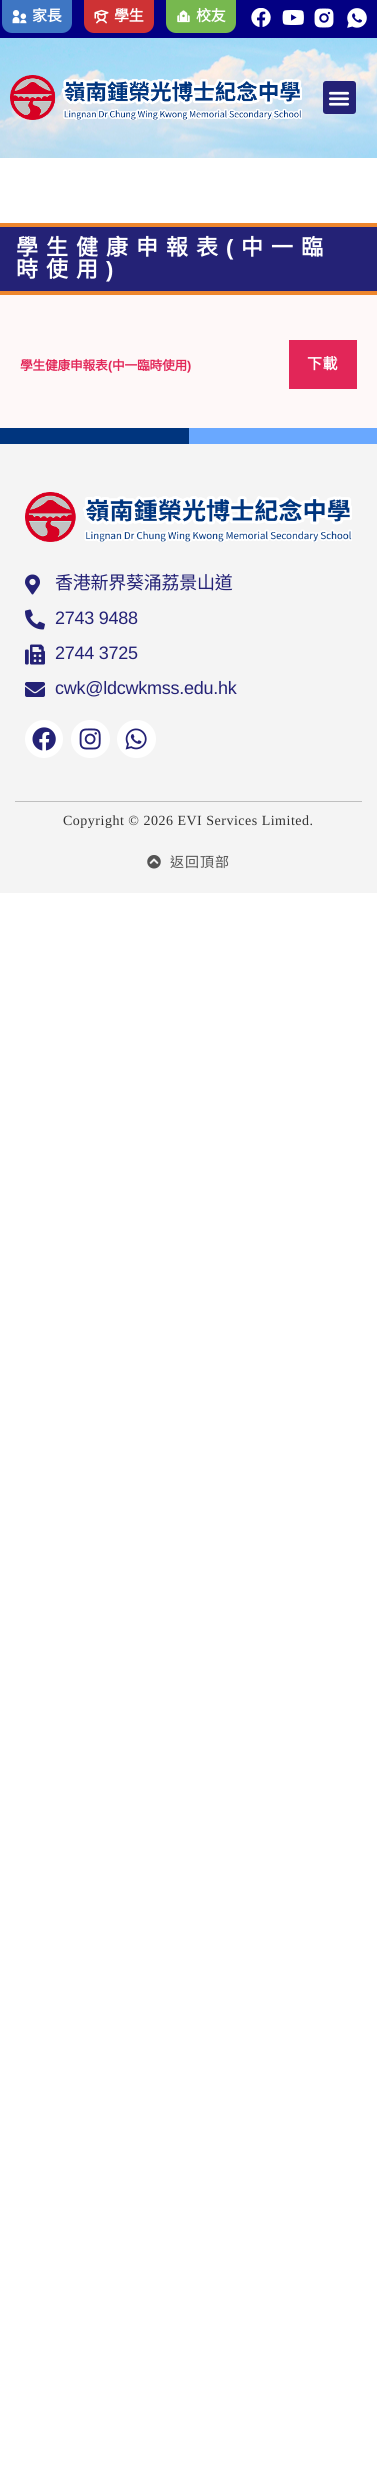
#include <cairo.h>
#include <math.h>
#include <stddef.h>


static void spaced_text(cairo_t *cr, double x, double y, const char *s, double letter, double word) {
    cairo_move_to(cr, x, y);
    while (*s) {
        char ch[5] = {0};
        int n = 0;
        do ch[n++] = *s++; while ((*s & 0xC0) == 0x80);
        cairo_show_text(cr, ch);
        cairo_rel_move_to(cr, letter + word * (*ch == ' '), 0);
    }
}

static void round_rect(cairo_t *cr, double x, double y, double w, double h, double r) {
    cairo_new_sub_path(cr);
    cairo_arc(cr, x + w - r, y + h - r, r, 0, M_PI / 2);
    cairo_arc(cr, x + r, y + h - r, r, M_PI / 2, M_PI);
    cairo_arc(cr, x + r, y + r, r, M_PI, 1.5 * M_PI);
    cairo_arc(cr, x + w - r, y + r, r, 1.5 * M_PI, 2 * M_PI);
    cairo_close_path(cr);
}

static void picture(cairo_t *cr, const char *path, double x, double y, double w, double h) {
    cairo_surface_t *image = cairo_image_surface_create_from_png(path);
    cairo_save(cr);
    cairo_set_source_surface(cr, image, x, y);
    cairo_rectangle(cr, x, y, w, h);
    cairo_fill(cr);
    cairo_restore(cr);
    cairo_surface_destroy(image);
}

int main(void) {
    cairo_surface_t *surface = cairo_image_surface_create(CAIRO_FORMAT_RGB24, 377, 2466);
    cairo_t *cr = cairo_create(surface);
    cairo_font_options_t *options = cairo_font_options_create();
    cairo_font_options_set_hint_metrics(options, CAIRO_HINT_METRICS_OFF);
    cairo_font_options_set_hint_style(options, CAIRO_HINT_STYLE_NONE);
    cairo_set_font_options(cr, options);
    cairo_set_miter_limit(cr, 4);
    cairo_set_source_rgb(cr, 1, 1, 1);
    cairo_paint(cr);
    picture(cr, "img1.png", 0, 38, 377, 120);
    cairo_set_source_rgb(cr, 0.012, 0, 0.514);
    cairo_rectangle(cr, 0, 0, 377, 38);
    cairo_fill(cr);
    cairo_set_source_rgb(cr, 0.243, 0.463, 0.765);
    cairo_new_path(cr);
    cairo_move_to(cr, 2, 0);
    cairo_line_to(cr, 72, 0);
    cairo_line_to(cr, 72, 23);
    cairo_curve_to(cr, 72, 28.5, 67.5, 33, 62, 33);
    cairo_line_to(cr, 12, 33);
    cairo_curve_to(cr, 6.5, 33, 2, 28.5, 2, 23);
    cairo_close_path(cr);
    cairo_fill(cr);
    picture(cr, "img2.png", 12, 10, 15, 14);
    cairo_select_font_face(cr, "Noto Sans CJK TC", CAIRO_FONT_SLANT_NORMAL, CAIRO_FONT_WEIGHT_BOLD);
    cairo_set_font_size(cr, 15);
    cairo_set_source_rgb(cr, 1, 1, 1);
    spaced_text(cr, 32, 21, "家長", -0.25, 0);
    cairo_set_source_rgb(cr, 0.808, 0.196, 0.204);
    cairo_new_path(cr);
    cairo_move_to(cr, 84, 0);
    cairo_line_to(cr, 154, 0);
    cairo_line_to(cr, 154, 23);
    cairo_curve_to(cr, 154, 28.5, 149.5, 33, 144, 33);
    cairo_line_to(cr, 94, 33);
    cairo_curve_to(cr, 88.5, 33, 84, 28.5, 84, 23);
    cairo_close_path(cr);
    cairo_fill(cr);
    picture(cr, "img3.png", 94, 9, 15, 15);
    cairo_set_source_rgb(cr, 1, 1, 1);
    spaced_text(cr, 114, 21, "學生", -0.25, 0);
    cairo_set_source_rgb(cr, 0.467, 0.722, 0.31);
    cairo_new_path(cr);
    cairo_move_to(cr, 166, 0);
    cairo_line_to(cr, 236, 0);
    cairo_line_to(cr, 236, 23);
    cairo_curve_to(cr, 236, 28.5, 231.5, 33, 226, 33);
    cairo_line_to(cr, 176, 33);
    cairo_curve_to(cr, 170.5, 33, 166, 28.5, 166, 23);
    cairo_close_path(cr);
    cairo_fill(cr);
    picture(cr, "img4.png", 177, 10, 13, 13);
    cairo_set_source_rgb(cr, 1, 1, 1);
    spaced_text(cr, 196, 21, "校友", -0.25, 0);
    picture(cr, "img5.png", 251, 8, 20, 19);
    picture(cr, "img6.png", 282, 10, 22, 15);
    picture(cr, "img7.png", 314, 8, 20, 20);
    picture(cr, "img8.png", 347, 8, 20, 20);
    picture(cr, "img9.png", 10, 75, 292, 45);
    cairo_set_source_rgb(cr, 0.141, 0.133, 0.463);
    round_rect(cr, 323, 81, 33, 33, 3);
    cairo_fill(cr);
    picture(cr, "img10.png", 328, 91, 22, 15);
    cairo_rectangle(cr, 0, 227, 377, 64);
    cairo_fill(cr);
    cairo_set_source_rgb(cr, 0.933, 0.525, 0.176);
    cairo_rectangle(cr, 0, 223, 377, 4);
    cairo_fill(cr);
    cairo_rectangle(cr, 0, 291, 377, 4);
    cairo_fill(cr);
    cairo_set_font_size(cr, 22);
    cairo_set_source_rgb(cr, 1, 1, 1);
    spaced_text(cr, 16, 255, "學生健康申報表", 8, 0);
    cairo_select_font_face(cr, "Liberation Sans", CAIRO_FONT_SLANT_NORMAL, CAIRO_FONT_WEIGHT_BOLD);
    spaced_text(cr, 226, 255, "(", 8, 0);
    cairo_select_font_face(cr, "Noto Sans CJK TC", CAIRO_FONT_SLANT_NORMAL, CAIRO_FONT_WEIGHT_BOLD);
    spaced_text(cr, 241, 255, "中一臨", 8, 0);
    spaced_text(cr, 16, 277, "時使用", 8, 0);
    cairo_select_font_face(cr, "Liberation Sans", CAIRO_FONT_SLANT_NORMAL, CAIRO_FONT_WEIGHT_BOLD);
    spaced_text(cr, 106, 277, ")", 8, 0);
    cairo_set_source_rgb(cr, 0.996, 0.969, 0.969);
    cairo_rectangle(cr, 0, 295, 377, 133);
    cairo_fill(cr);
    cairo_select_font_face(cr, "Noto Sans CJK TC", CAIRO_FONT_SLANT_NORMAL, CAIRO_FONT_WEIGHT_BOLD);
    cairo_set_font_size(cr, 12.75);
    cairo_set_source_rgb(cr, 0.886, 0.149, 0.345);
    spaced_text(cr, 20, 370, "學生健康申報表", -0.25, 0);
    cairo_select_font_face(cr, "Liberation Sans", CAIRO_FONT_SLANT_NORMAL, CAIRO_FONT_WEIGHT_BOLD);
    spaced_text(cr, 108, 370, "(", -0.25, 0);
    cairo_select_font_face(cr, "Noto Sans CJK TC", CAIRO_FONT_SLANT_NORMAL, CAIRO_FONT_WEIGHT_BOLD);
    spaced_text(cr, 112, 370, "中一臨時使用", -0.25, 0);
    cairo_select_font_face(cr, "Liberation Sans", CAIRO_FONT_SLANT_NORMAL, CAIRO_FONT_WEIGHT_BOLD);
    spaced_text(cr, 187, 370, ")", -0.25, 0);
    cairo_rectangle(cr, 289, 340, 68, 49);
    cairo_fill(cr);
    cairo_select_font_face(cr, "Noto Sans CJK TC", CAIRO_FONT_SLANT_NORMAL, CAIRO_FONT_WEIGHT_BOLD);
    cairo_set_font_size(cr, 15);
    cairo_set_source_rgb(cr, 1, 1, 1);
    spaced_text(cr, 307, 369, "下載", 0.5, 0);
    cairo_set_source_rgb(cr, 0, 0.208, 0.494);
    cairo_rectangle(cr, 0, 428, 189, 16);
    cairo_fill(cr);
    cairo_set_source_rgb(cr, 0.412, 0.659, 1);
    cairo_rectangle(cr, 189, 428, 188, 16);
    cairo_fill(cr);
    cairo_set_source_rgb(cr, 0.957, 0.957, 0.957);
    cairo_rectangle(cr, 0, 444, 377, 449);
    cairo_fill(cr);
    picture(cr, "img11.png", 25, 492, 327, 50);
    picture(cr, "img12.png", 25, 574, 15, 21);
    cairo_select_font_face(cr, "Noto Sans CJK TC", CAIRO_FONT_SLANT_NORMAL, CAIRO_FONT_WEIGHT_NORMAL);
    cairo_set_font_size(cr, 18);
    cairo_set_source_rgb(cr, 0.141, 0.133, 0.463);
    spaced_text(cr, 55, 589, "香港新界葵涌荔景山道", -0.25, 0);
    picture(cr, "img13.png", 25, 609, 20, 21);
    cairo_select_font_face(cr, "Liberation Sans", CAIRO_FONT_SLANT_NORMAL, CAIRO_FONT_WEIGHT_NORMAL);
    spaced_text(cr, 55, 624, "2743 9488", -0.25, 0);
    picture(cr, "img14.png", 25, 644, 20, 21);
    spaced_text(cr, 55, 659, "2744 3725", -0.25, 0);
    picture(cr, "img15.png", 25, 682, 20, 15);
    spaced_text(cr, 55, 694, "cwk@ldcwkmss.edu.hk", -0.25, 0);
    cairo_set_source_rgb(cr, 1, 1, 1);
    cairo_new_path(cr);
    cairo_arc(cr, 44, 739, 19, 0, 2 * M_PI);
    cairo_fill(cr);
    picture(cr, "img16.png", 32, 727, 24, 24);
    round_rect(cr, 71, 720, 39, 38, 19);
    cairo_fill(cr);
    picture(cr, "img17.png", 79, 728, 22, 22);
    round_rect(cr, 117, 720, 39, 38, 19);
    cairo_fill(cr);
    picture(cr, "img18.png", 125, 728, 22, 22);
    cairo_set_source_rgb(cr, 0.749, 0.749, 0.749);
    cairo_rectangle(cr, 15, 801, 347, 1);
    cairo_fill(cr);
    cairo_select_font_face(cr, "Liberation Serif", CAIRO_FONT_SLANT_NORMAL, CAIRO_FONT_WEIGHT_NORMAL);
    cairo_set_font_size(cr, 14);
    cairo_set_source_rgb(cr, 0.2, 0.2, 0.2);
    spaced_text(cr, 63, 825, "Copyright © 2026 EVI Services Limited.", 0.5, 0);
    picture(cr, "img19.png", 147, 855, 14, 14);
    cairo_select_font_face(cr, "Noto Sans CJK TC", CAIRO_FONT_SLANT_NORMAL, CAIRO_FONT_WEIGHT_NORMAL);
    cairo_set_source_rgb(cr, 0.329, 0.329, 0.329);
    spaced_text(cr, 170, 867, "返回頂部", 1, 0);
    cairo_surface_write_to_png(surface, "page.png");
    cairo_font_options_destroy(options);
    cairo_destroy(cr);
    cairo_surface_destroy(surface);
    return 0;
}
